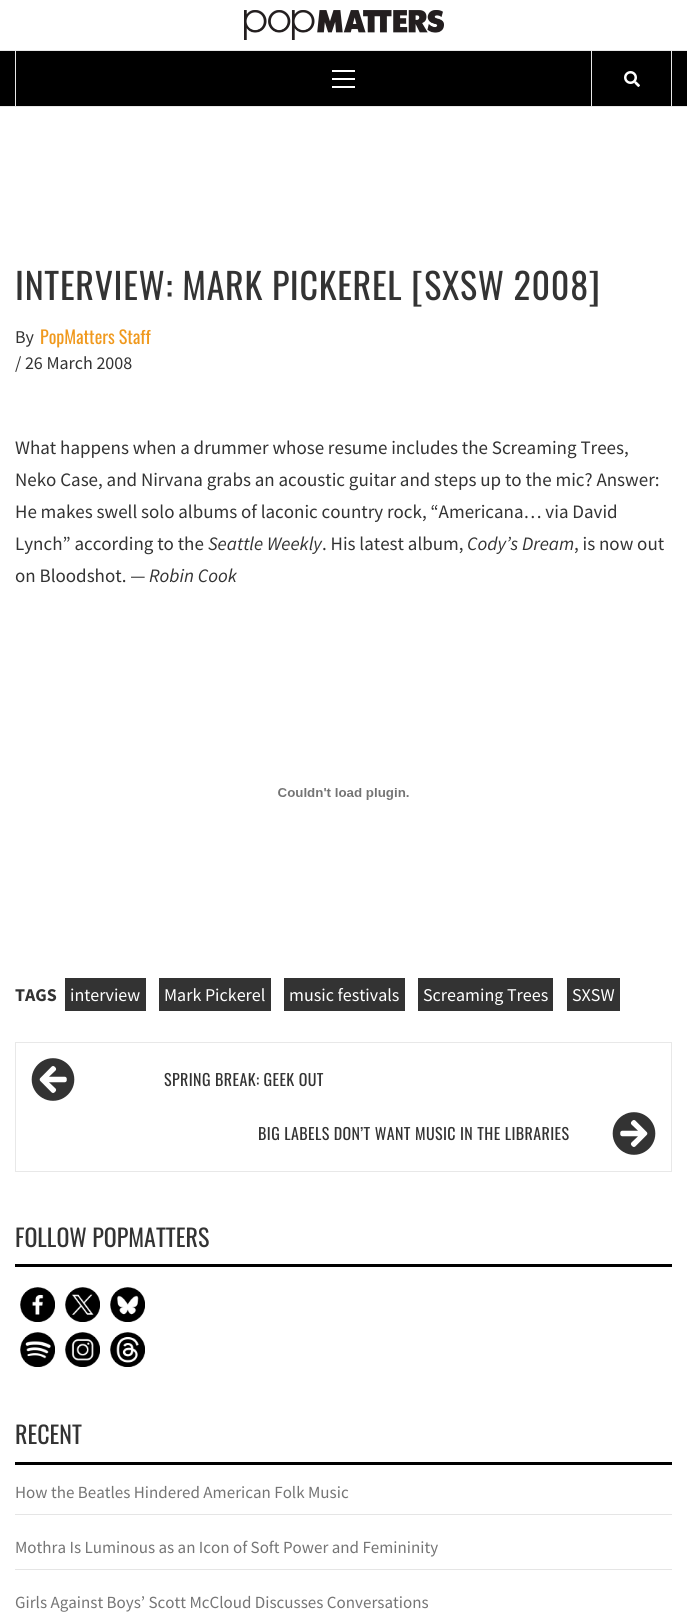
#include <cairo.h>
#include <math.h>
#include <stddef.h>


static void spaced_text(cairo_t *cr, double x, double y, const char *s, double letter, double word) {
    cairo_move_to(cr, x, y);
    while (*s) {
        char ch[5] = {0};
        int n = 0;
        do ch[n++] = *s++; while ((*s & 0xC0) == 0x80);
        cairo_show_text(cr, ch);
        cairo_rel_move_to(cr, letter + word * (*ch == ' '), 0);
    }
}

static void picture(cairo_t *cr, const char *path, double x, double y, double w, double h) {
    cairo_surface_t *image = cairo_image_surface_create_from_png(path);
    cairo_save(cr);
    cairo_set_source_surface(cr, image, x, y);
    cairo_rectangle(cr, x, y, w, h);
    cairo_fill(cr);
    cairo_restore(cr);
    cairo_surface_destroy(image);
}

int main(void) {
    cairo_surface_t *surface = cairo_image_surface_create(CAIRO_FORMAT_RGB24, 687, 1618);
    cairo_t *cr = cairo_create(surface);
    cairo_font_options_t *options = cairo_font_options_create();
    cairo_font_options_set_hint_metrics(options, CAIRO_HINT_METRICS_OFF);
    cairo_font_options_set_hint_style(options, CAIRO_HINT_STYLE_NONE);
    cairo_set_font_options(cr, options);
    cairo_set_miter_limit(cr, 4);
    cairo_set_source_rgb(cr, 1, 1, 1);
    cairo_paint(cr);
    picture(cr, "img1.png", 244, 10, 200, 30);
    cairo_set_source_rgb(cr, 0, 0, 0);
    cairo_rectangle(cr, 0, 51, 687, 55);
    cairo_fill(cr);
    cairo_set_source_rgb(cr, 0.91, 0.91, 0.91);
    cairo_rectangle(cr, 0, 50, 687, 1);
    cairo_fill(cr);
    cairo_rectangle(cr, 0, 106, 687, 1);
    cairo_fill(cr);
    cairo_rectangle(cr, 671, 51, 1, 55);
    cairo_fill(cr);
    cairo_rectangle(cr, 15, 51, 1, 55);
    cairo_fill(cr);
    cairo_set_source_rgb(cr, 1, 1, 1);
    cairo_rectangle(cr, 332, 78, 23, 2);
    cairo_fill(cr);
    cairo_rectangle(cr, 332, 70, 23, 2);
    cairo_fill(cr);
    cairo_rectangle(cr, 332, 86, 23, 2);
    cairo_fill(cr);
    cairo_set_source_rgb(cr, 0.91, 0.91, 0.91);
    cairo_rectangle(cr, 591, 51, 1, 55);
    cairo_fill(cr);
    picture(cr, "img2.png", 624, 71, 16, 16);
    cairo_select_font_face(cr, "Oswald", CAIRO_FONT_SLANT_NORMAL, CAIRO_FONT_WEIGHT_NORMAL);
    cairo_set_font_size(cr, 36);
    cairo_set_source_rgb(cr, 0.2, 0.2, 0.2);
    spaced_text(cr, 15, 300, "INTERVIEW: MARK PICKEREL [SXSW 2008]", 0.7, 0);
    cairo_select_font_face(cr, "Source Sans Pro", CAIRO_FONT_SLANT_NORMAL, CAIRO_FONT_WEIGHT_NORMAL);
    cairo_set_font_size(cr, 18);
    cairo_move_to(cr, 15, 343);
    cairo_show_text(cr, "By");
    cairo_select_font_face(cr, "Oswald", CAIRO_FONT_SLANT_NORMAL, CAIRO_FONT_WEIGHT_NORMAL);
    cairo_set_source_rgb(cr, 0.941, 0.6, 0.114);
    cairo_move_to(cr, 40, 344);
    cairo_show_text(cr, "PopMatters Staff");
    cairo_select_font_face(cr, "Source Sans Pro", CAIRO_FONT_SLANT_NORMAL, CAIRO_FONT_WEIGHT_NORMAL);
    cairo_set_source_rgb(cr, 0.2, 0.2, 0.2);
    cairo_move_to(cr, 15, 369);
    cairo_show_text(cr, "/ 26 March 2008");
    cairo_set_font_size(cr, 19);
    cairo_move_to(cr, 15, 454);
    cairo_show_text(cr, "What happens when a drummer whose resume includes the Screaming Trees,");
    cairo_move_to(cr, 15, 486);
    cairo_show_text(cr, "Neko Case, and Nirvana grabs an acoustic guitar and steps up to the mic? Answer:");
    cairo_move_to(cr, 15, 518);
    cairo_show_text(cr, "He makes swell solo albums of laconic country rock, “Americana… via David");
    cairo_move_to(cr, 15, 550);
    cairo_show_text(cr, "Lynch” according to the");
    cairo_select_font_face(cr, "Source Sans Pro", CAIRO_FONT_SLANT_ITALIC, CAIRO_FONT_WEIGHT_NORMAL);
    cairo_move_to(cr, 208, 550);
    cairo_show_text(cr, "Seattle Weekly");
    cairo_select_font_face(cr, "Source Sans Pro", CAIRO_FONT_SLANT_NORMAL, CAIRO_FONT_WEIGHT_NORMAL);
    cairo_move_to(cr, 322, 550);
    cairo_show_text(cr, ". His latest album,");
    cairo_select_font_face(cr, "Source Sans Pro", CAIRO_FONT_SLANT_ITALIC, CAIRO_FONT_WEIGHT_NORMAL);
    cairo_move_to(cr, 467, 550);
    cairo_show_text(cr, "Cody’s Dream");
    cairo_select_font_face(cr, "Source Sans Pro", CAIRO_FONT_SLANT_NORMAL, CAIRO_FONT_WEIGHT_NORMAL);
    cairo_move_to(cr, 574, 550);
    cairo_show_text(cr, ", is now out");
    cairo_move_to(cr, 15, 582);
    cairo_show_text(cr, "on Bloodshot. —");
    cairo_select_font_face(cr, "Source Sans Pro", CAIRO_FONT_SLANT_ITALIC, CAIRO_FONT_WEIGHT_NORMAL);
    cairo_move_to(cr, 149, 582);
    cairo_show_text(cr, "Robin Cook");
    picture(cr, "img3.png", 278, 788, 131, 12);
    cairo_select_font_face(cr, "Source Sans Pro", CAIRO_FONT_SLANT_NORMAL, CAIRO_FONT_WEIGHT_BOLD);
    cairo_set_font_size(cr, 18);
    cairo_move_to(cr, 15, 1001);
    cairo_show_text(cr, "TAGS");
    cairo_rectangle(cr, 65, 978, 81, 33);
    cairo_fill(cr);
    cairo_select_font_face(cr, "Source Sans Pro", CAIRO_FONT_SLANT_NORMAL, CAIRO_FONT_WEIGHT_NORMAL);
    cairo_set_source_rgb(cr, 1, 1, 1);
    cairo_move_to(cr, 70, 1001);
    cairo_show_text(cr, "interview");
    cairo_set_source_rgb(cr, 0.2, 0.2, 0.2);
    cairo_rectangle(cr, 159, 978, 112, 33);
    cairo_fill(cr);
    cairo_set_source_rgb(cr, 1, 1, 1);
    cairo_move_to(cr, 164, 1001);
    cairo_show_text(cr, "Mark Pickerel");
    cairo_set_source_rgb(cr, 0.2, 0.2, 0.2);
    cairo_rectangle(cr, 284, 978, 121, 33);
    cairo_fill(cr);
    cairo_set_source_rgb(cr, 1, 1, 1);
    cairo_move_to(cr, 289, 1001);
    cairo_show_text(cr, "music festivals");
    cairo_set_source_rgb(cr, 0.2, 0.2, 0.2);
    cairo_rectangle(cr, 418, 978, 135, 33);
    cairo_fill(cr);
    cairo_set_source_rgb(cr, 1, 1, 1);
    cairo_move_to(cr, 423, 1001);
    cairo_show_text(cr, "Screaming Trees");
    cairo_set_source_rgb(cr, 0.2, 0.2, 0.2);
    cairo_rectangle(cr, 567, 978, 53, 33);
    cairo_fill(cr);
    cairo_set_source_rgb(cr, 1, 1, 1);
    cairo_move_to(cr, 572, 1001);
    cairo_show_text(cr, "SXSW");
    cairo_rectangle(cr, 15.5, 1042.5, 656, 129);
    cairo_set_source_rgb(cr, 0.91, 0.91, 0.91);
    cairo_set_line_width(cr, 1);
    cairo_stroke(cr);
    picture(cr, "img4.png", 31, 1058, 44, 43);
    cairo_select_font_face(cr, "Oswald", CAIRO_FONT_SLANT_NORMAL, CAIRO_FONT_WEIGHT_NORMAL);
    cairo_set_font_size(cr, 16);
    cairo_set_source_rgb(cr, 0.2, 0.2, 0.2);
    spaced_text(cr, 164, 1086, "SPRING BREAK: GEEK OUT", 0.4, 0);
    spaced_text(cr, 258, 1140, "BIG LABELS DON’T WANT MUSIC IN THE LIBRARIES", 0.4, 0);
    picture(cr, "img5.png", 612, 1112, 44, 43);
    cairo_set_source_rgb(cr, 0, 0, 0);
    cairo_rectangle(cr, 15, 1264, 657, 3);
    cairo_fill(cr);
    cairo_set_font_size(cr, 24);
    cairo_set_source_rgb(cr, 0.2, 0.2, 0.2);
    cairo_move_to(cr, 15, 1247);
    cairo_show_text(cr, "FOLLOW POPMATTERS");
    picture(cr, "img6.png", 20, 1287, 35, 35);
    picture(cr, "img7.png", 65, 1287, 35, 35);
    picture(cr, "img8.png", 110, 1287, 35, 35);
    picture(cr, "img9.png", 20, 1332, 35, 35);
    picture(cr, "img10.png", 65, 1332, 35, 35);
    picture(cr, "img11.png", 110, 1332, 35, 35);
    cairo_set_source_rgb(cr, 0, 0, 0);
    cairo_rectangle(cr, 15, 1462, 657, 3);
    cairo_fill(cr);
    cairo_set_source_rgb(cr, 0.2, 0.2, 0.2);
    cairo_move_to(cr, 15, 1444);
    cairo_show_text(cr, "RECENT");
    cairo_set_source_rgb(cr, 0.898, 0.898, 0.898);
    cairo_rectangle(cr, 15, 1514, 657, 1);
    cairo_fill(cr);
    cairo_select_font_face(cr, "Source Sans Pro", CAIRO_FONT_SLANT_NORMAL, CAIRO_FONT_WEIGHT_NORMAL);
    cairo_set_font_size(cr, 17);
    cairo_set_source_rgb(cr, 0.459, 0.459, 0.459);
    cairo_move_to(cr, 15, 1498);
    cairo_show_text(cr, "How the Beatles Hindered American Folk Music");
    cairo_set_source_rgb(cr, 0.898, 0.898, 0.898);
    cairo_rectangle(cr, 15, 1569, 657, 1);
    cairo_fill(cr);
    cairo_set_source_rgb(cr, 0.459, 0.459, 0.459);
    cairo_move_to(cr, 15, 1553);
    cairo_show_text(cr, "Mothra Is Luminous as an Icon of Soft Power and Femininity");
    cairo_move_to(cr, 15, 1608);
    cairo_show_text(cr, "Girls Against Boys’ Scott McCloud Discusses Conversations");
    cairo_surface_write_to_png(surface, "page.png");
    cairo_font_options_destroy(options);
    cairo_destroy(cr);
    cairo_surface_destroy(surface);
    return 0;
}
